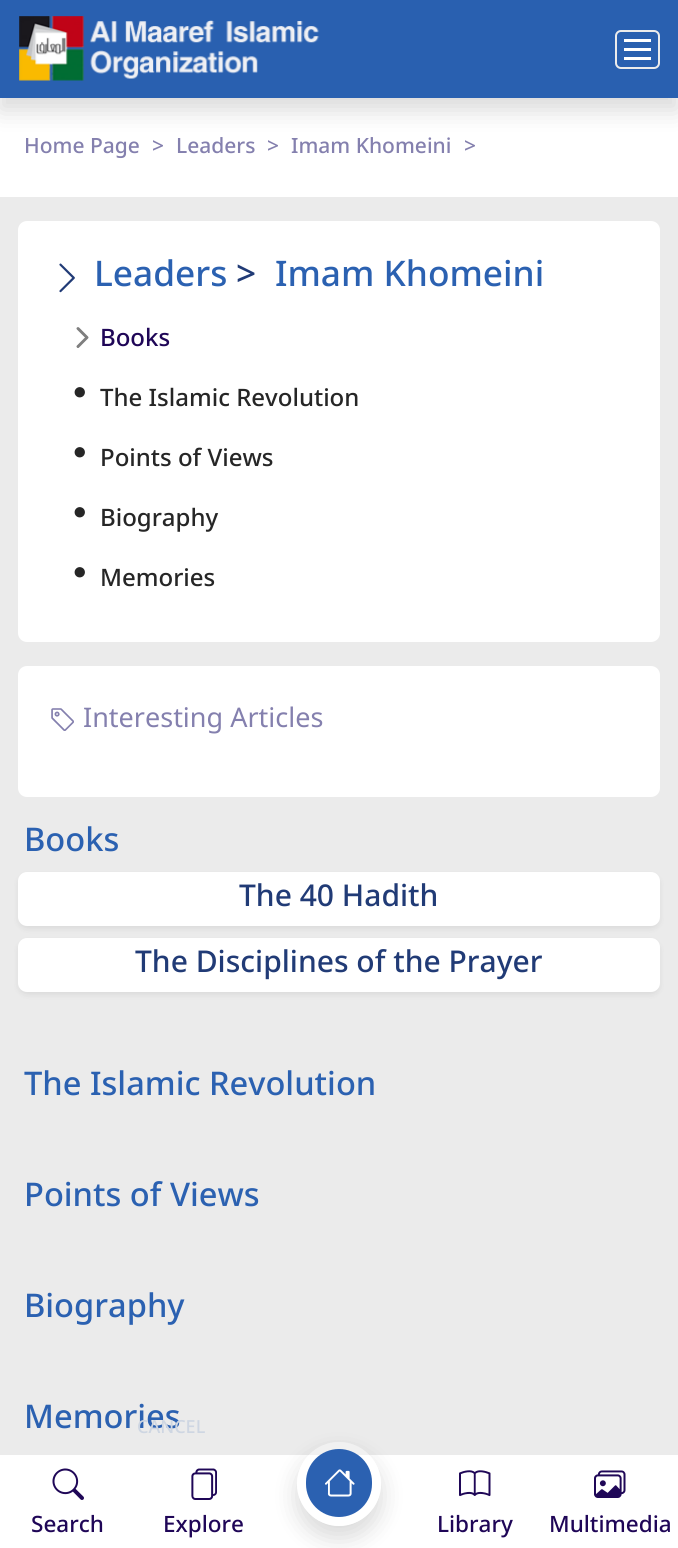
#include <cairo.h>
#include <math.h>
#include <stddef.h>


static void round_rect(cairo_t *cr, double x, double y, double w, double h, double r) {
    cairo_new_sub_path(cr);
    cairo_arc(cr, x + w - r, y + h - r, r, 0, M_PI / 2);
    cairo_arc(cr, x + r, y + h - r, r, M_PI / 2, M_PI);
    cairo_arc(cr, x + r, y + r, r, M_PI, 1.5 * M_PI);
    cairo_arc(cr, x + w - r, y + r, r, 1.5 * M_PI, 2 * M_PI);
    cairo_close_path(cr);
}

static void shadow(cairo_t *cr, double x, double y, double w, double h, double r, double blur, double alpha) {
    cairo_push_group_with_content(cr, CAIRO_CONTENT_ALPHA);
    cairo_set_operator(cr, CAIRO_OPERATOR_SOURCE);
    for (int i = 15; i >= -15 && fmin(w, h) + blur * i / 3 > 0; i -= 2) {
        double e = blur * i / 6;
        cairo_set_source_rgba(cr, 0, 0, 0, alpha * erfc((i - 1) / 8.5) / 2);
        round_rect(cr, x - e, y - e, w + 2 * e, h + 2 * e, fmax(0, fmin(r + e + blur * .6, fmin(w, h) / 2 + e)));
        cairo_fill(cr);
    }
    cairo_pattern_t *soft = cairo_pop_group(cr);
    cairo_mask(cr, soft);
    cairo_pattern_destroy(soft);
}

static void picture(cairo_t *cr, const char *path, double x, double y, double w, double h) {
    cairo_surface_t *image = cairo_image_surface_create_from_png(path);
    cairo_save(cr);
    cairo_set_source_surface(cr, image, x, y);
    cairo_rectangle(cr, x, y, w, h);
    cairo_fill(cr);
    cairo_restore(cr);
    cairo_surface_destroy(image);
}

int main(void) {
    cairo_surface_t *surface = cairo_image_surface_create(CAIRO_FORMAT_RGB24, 678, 1548);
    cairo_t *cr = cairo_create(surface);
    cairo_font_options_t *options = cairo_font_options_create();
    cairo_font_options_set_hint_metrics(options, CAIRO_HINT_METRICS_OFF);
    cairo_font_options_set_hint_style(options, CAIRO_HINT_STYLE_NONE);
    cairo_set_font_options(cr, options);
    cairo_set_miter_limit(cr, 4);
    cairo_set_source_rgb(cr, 0.918, 0.918, 0.918);
    cairo_paint(cr);
    cairo_set_source_rgb(cr, 1, 1, 1);
    cairo_rectangle(cr, 0, 98, 678, 99);
    cairo_fill(cr);
    cairo_set_source_rgb(cr, 0, 0, 0);
    shadow(cr, 0, 12, 678, 98, 0, 12, 0.15);
    cairo_set_source_rgb(cr, 0.161, 0.376, 0.69);
    cairo_rectangle(cr, 0, 0, 678, 98);
    cairo_fill(cr);
    picture(cr, "img1.png", 19, 16, 301, 65);
    round_rect(cr, 616, 31, 43, 37, 5);
    cairo_set_source_rgb(cr, 0.922, 0.922, 0.922);
    cairo_stroke(cr);
    cairo_set_source_rgb(cr, 1, 1, 1);
    cairo_rectangle(cr, 624, 39, 27, 3);
    cairo_fill(cr);
    cairo_rectangle(cr, 624, 48, 27, 3);
    cairo_fill(cr);
    cairo_rectangle(cr, 624, 57, 27, 3);
    cairo_fill(cr);
    cairo_select_font_face(cr, "Noto Sans Medium", CAIRO_FONT_SLANT_NORMAL, CAIRO_FONT_WEIGHT_NORMAL);
    cairo_set_font_size(cr, 21);
    cairo_set_source_rgb(cr, 0.518, 0.502, 0.682);
    cairo_move_to(cr, 24, 153);
    cairo_show_text(cr, "Home Page");
    cairo_move_to(cr, 152, 153);
    cairo_show_text(cr, ">");
    cairo_move_to(cr, 176, 153);
    cairo_show_text(cr, "Leaders");
    cairo_move_to(cr, 267, 153);
    cairo_show_text(cr, ">");
    cairo_move_to(cr, 291, 153);
    cairo_show_text(cr, "Imam Khomeini");
    cairo_move_to(cr, 464, 153);
    cairo_show_text(cr, ">");
    cairo_set_source_rgb(cr, 1, 1, 1);
    round_rect(cr, 18, 221, 642, 421, 9);
    cairo_fill(cr);
    picture(cr, "img2.png", 59, 263, 16, 30);
    cairo_set_font_size(cr, 35.25);
    cairo_set_source_rgb(cr, 0.169, 0.38, 0.694);
    cairo_move_to(cr, 94, 286);
    cairo_show_text(cr, "Leaders");
    cairo_set_source_rgb(cr, 0.129, 0.231, 0.463);
    cairo_move_to(cr, 236, 286);
    cairo_show_text(cr, ">");
    cairo_set_source_rgb(cr, 0.169, 0.38, 0.694);
    cairo_move_to(cr, 275, 286);
    cairo_show_text(cr, "Imam Khomeini");
    picture(cr, "img3.png", 76, 327, 13, 21);
    cairo_set_font_size(cr, 24);
    cairo_set_source_rgb(cr, 0.122, 0.027, 0.341);
    cairo_move_to(cr, 100, 346);
    cairo_show_text(cr, "Books");
    cairo_select_font_face(cr, "Liberation Sans", CAIRO_FONT_SLANT_NORMAL, CAIRO_FONT_WEIGHT_NORMAL);
    cairo_set_source_rgb(cr, 0.149, 0.149, 0.149);
    cairo_save(cr);
    cairo_translate(cr, 73, 385);
    cairo_rotate(cr, 90 * M_PI / 180);
    cairo_move_to(cr, 0, 0);
    cairo_show_text(cr, "●");
    cairo_restore(cr);
    cairo_select_font_face(cr, "Noto Sans Medium", CAIRO_FONT_SLANT_NORMAL, CAIRO_FONT_WEIGHT_NORMAL);
    cairo_move_to(cr, 100, 406);
    cairo_show_text(cr, "The Islamic Revolution");
    cairo_select_font_face(cr, "Liberation Sans", CAIRO_FONT_SLANT_NORMAL, CAIRO_FONT_WEIGHT_NORMAL);
    cairo_save(cr);
    cairo_translate(cr, 73, 445);
    cairo_rotate(cr, 90 * M_PI / 180);
    cairo_move_to(cr, 0, 0);
    cairo_show_text(cr, "●");
    cairo_restore(cr);
    cairo_select_font_face(cr, "Noto Sans Medium", CAIRO_FONT_SLANT_NORMAL, CAIRO_FONT_WEIGHT_NORMAL);
    cairo_move_to(cr, 100, 466);
    cairo_show_text(cr, "Points of Views");
    cairo_select_font_face(cr, "Liberation Sans", CAIRO_FONT_SLANT_NORMAL, CAIRO_FONT_WEIGHT_NORMAL);
    cairo_save(cr);
    cairo_translate(cr, 73, 505);
    cairo_rotate(cr, 90 * M_PI / 180);
    cairo_move_to(cr, 0, 0);
    cairo_show_text(cr, "●");
    cairo_restore(cr);
    cairo_select_font_face(cr, "Noto Sans Medium", CAIRO_FONT_SLANT_NORMAL, CAIRO_FONT_WEIGHT_NORMAL);
    cairo_move_to(cr, 100, 526);
    cairo_show_text(cr, "Biography");
    cairo_select_font_face(cr, "Liberation Sans", CAIRO_FONT_SLANT_NORMAL, CAIRO_FONT_WEIGHT_NORMAL);
    cairo_save(cr);
    cairo_translate(cr, 73, 565);
    cairo_rotate(cr, 90 * M_PI / 180);
    cairo_move_to(cr, 0, 0);
    cairo_show_text(cr, "●");
    cairo_restore(cr);
    cairo_select_font_face(cr, "Noto Sans Medium", CAIRO_FONT_SLANT_NORMAL, CAIRO_FONT_WEIGHT_NORMAL);
    cairo_move_to(cr, 100, 586);
    cairo_show_text(cr, "Memories");
    cairo_set_source_rgb(cr, 1, 1, 1);
    round_rect(cr, 18, 666, 642, 131, 9);
    cairo_fill(cr);
    picture(cr, "img4.png", 51, 708, 23, 23);
    cairo_select_font_face(cr, "Noto Sans", CAIRO_FONT_SLANT_NORMAL, CAIRO_FONT_WEIGHT_NORMAL);
    cairo_set_font_size(cr, 27);
    cairo_set_source_rgb(cr, 0.518, 0.502, 0.682);
    cairo_move_to(cr, 83, 727);
    cairo_show_text(cr, "Interesting Articles");
    cairo_select_font_face(cr, "Noto Sans Medium", CAIRO_FONT_SLANT_NORMAL, CAIRO_FONT_WEIGHT_NORMAL);
    cairo_set_font_size(cr, 32.6);
    cairo_set_source_rgb(cr, 0.169, 0.38, 0.694);
    cairo_move_to(cr, 24, 851);
    cairo_show_text(cr, "Books");
    cairo_set_source_rgb(cr, 0, 0, 0);
    shadow(cr, 18, 875, 642, 54, 9, 3, 0.07);
    cairo_set_source_rgb(cr, 1, 1, 1);
    round_rect(cr, 18, 872, 642, 54, 9);
    cairo_fill(cr);
    cairo_set_font_size(cr, 30);
    cairo_set_source_rgb(cr, 0.129, 0.231, 0.463);
    cairo_move_to(cr, 239, 906);
    cairo_show_text(cr, "The 40 Hadith");
    cairo_set_source_rgb(cr, 0, 0, 0);
    shadow(cr, 18, 941, 642, 54, 9, 3, 0.07);
    cairo_set_source_rgb(cr, 1, 1, 1);
    round_rect(cr, 18, 938, 642, 54, 9);
    cairo_fill(cr);
    cairo_set_source_rgb(cr, 0.129, 0.231, 0.463);
    cairo_move_to(cr, 135, 972);
    cairo_show_text(cr, "The Disciplines of the Prayer");
    cairo_set_font_size(cr, 32.6);
    cairo_set_source_rgb(cr, 0.169, 0.38, 0.694);
    cairo_move_to(cr, 24, 1095);
    cairo_show_text(cr, "The Islamic Revolution");
    cairo_move_to(cr, 24, 1206);
    cairo_show_text(cr, "Points of Views");
    cairo_move_to(cr, 24, 1317);
    cairo_show_text(cr, "Biography");
    cairo_move_to(cr, 24, 1428);
    cairo_show_text(cr, "Memories");
    cairo_set_font_size(cr, 18);
    cairo_set_source_rgb(cr, 0.808, 0.839, 0.886);
    cairo_move_to(cr, 137, 1433);
    cairo_show_text(cr, "CANCEL");
    cairo_set_source_rgb(cr, 1, 1, 1);
    cairo_rectangle(cr, 0, 1455, 678, 93);
    cairo_fill(cr);
    picture(cr, "img5.png", 52, 1468, 32, 32);
    cairo_set_font_size(cr, 22.5);
    cairo_set_source_rgb(cr, 0.122, 0.027, 0.341);
    cairo_move_to(cr, 31, 1532);
    cairo_show_text(cr, "Search");
    picture(cr, "img6.png", 191, 1468, 26, 32);
    cairo_move_to(cr, 163, 1532);
    cairo_show_text(cr, "Explore");
    cairo_save(cr);
    cairo_set_fill_rule(cr, CAIRO_FILL_RULE_EVEN_ODD);
    cairo_new_path(cr);
    cairo_move_to(cr, 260, 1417);
    cairo_line_to(cr, 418, 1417);
    cairo_line_to(cr, 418, 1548);
    cairo_line_to(cr, 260, 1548);
    cairo_close_path(cr);
    cairo_move_to(cr, 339, 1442);
    cairo_curve_to(cr, 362, 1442, 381, 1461, 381, 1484);
    cairo_curve_to(cr, 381, 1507, 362, 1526, 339, 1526);
    cairo_curve_to(cr, 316, 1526, 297, 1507, 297, 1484);
    cairo_curve_to(cr, 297, 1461, 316, 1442, 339, 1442);
    cairo_close_path(cr);
    cairo_clip(cr);
    cairo_set_source_rgb(cr, 0, 0, 0);
    shadow(cr, 297, 1454, 84, 84, 42, 12, 0.15);
    cairo_restore(cr);
    cairo_set_source_rgba(cr, 1, 1, 1, 0.3);
    cairo_arc(cr, 339, 1484, 42, 0, 2 * M_PI);
    cairo_fill(cr);
    cairo_set_source_rgb(cr, 0.169, 0.38, 0.694);
    round_rect(cr, 306, 1449, 66, 68, 33);
    cairo_fill(cr);
    picture(cr, "img7.png", 325, 1469, 30, 28);
    picture(cr, "img8.png", 459, 1470, 32, 27);
    cairo_set_source_rgb(cr, 0.122, 0.027, 0.341);
    cairo_move_to(cr, 437, 1532);
    cairo_show_text(cr, "Library");
    picture(cr, "img9.png", 594, 1470, 32, 28);
    cairo_move_to(cr, 549, 1532);
    cairo_show_text(cr, "Multimedia");
    cairo_surface_write_to_png(surface, "page.png");
    cairo_font_options_destroy(options);
    cairo_destroy(cr);
    cairo_surface_destroy(surface);
    return 0;
}
